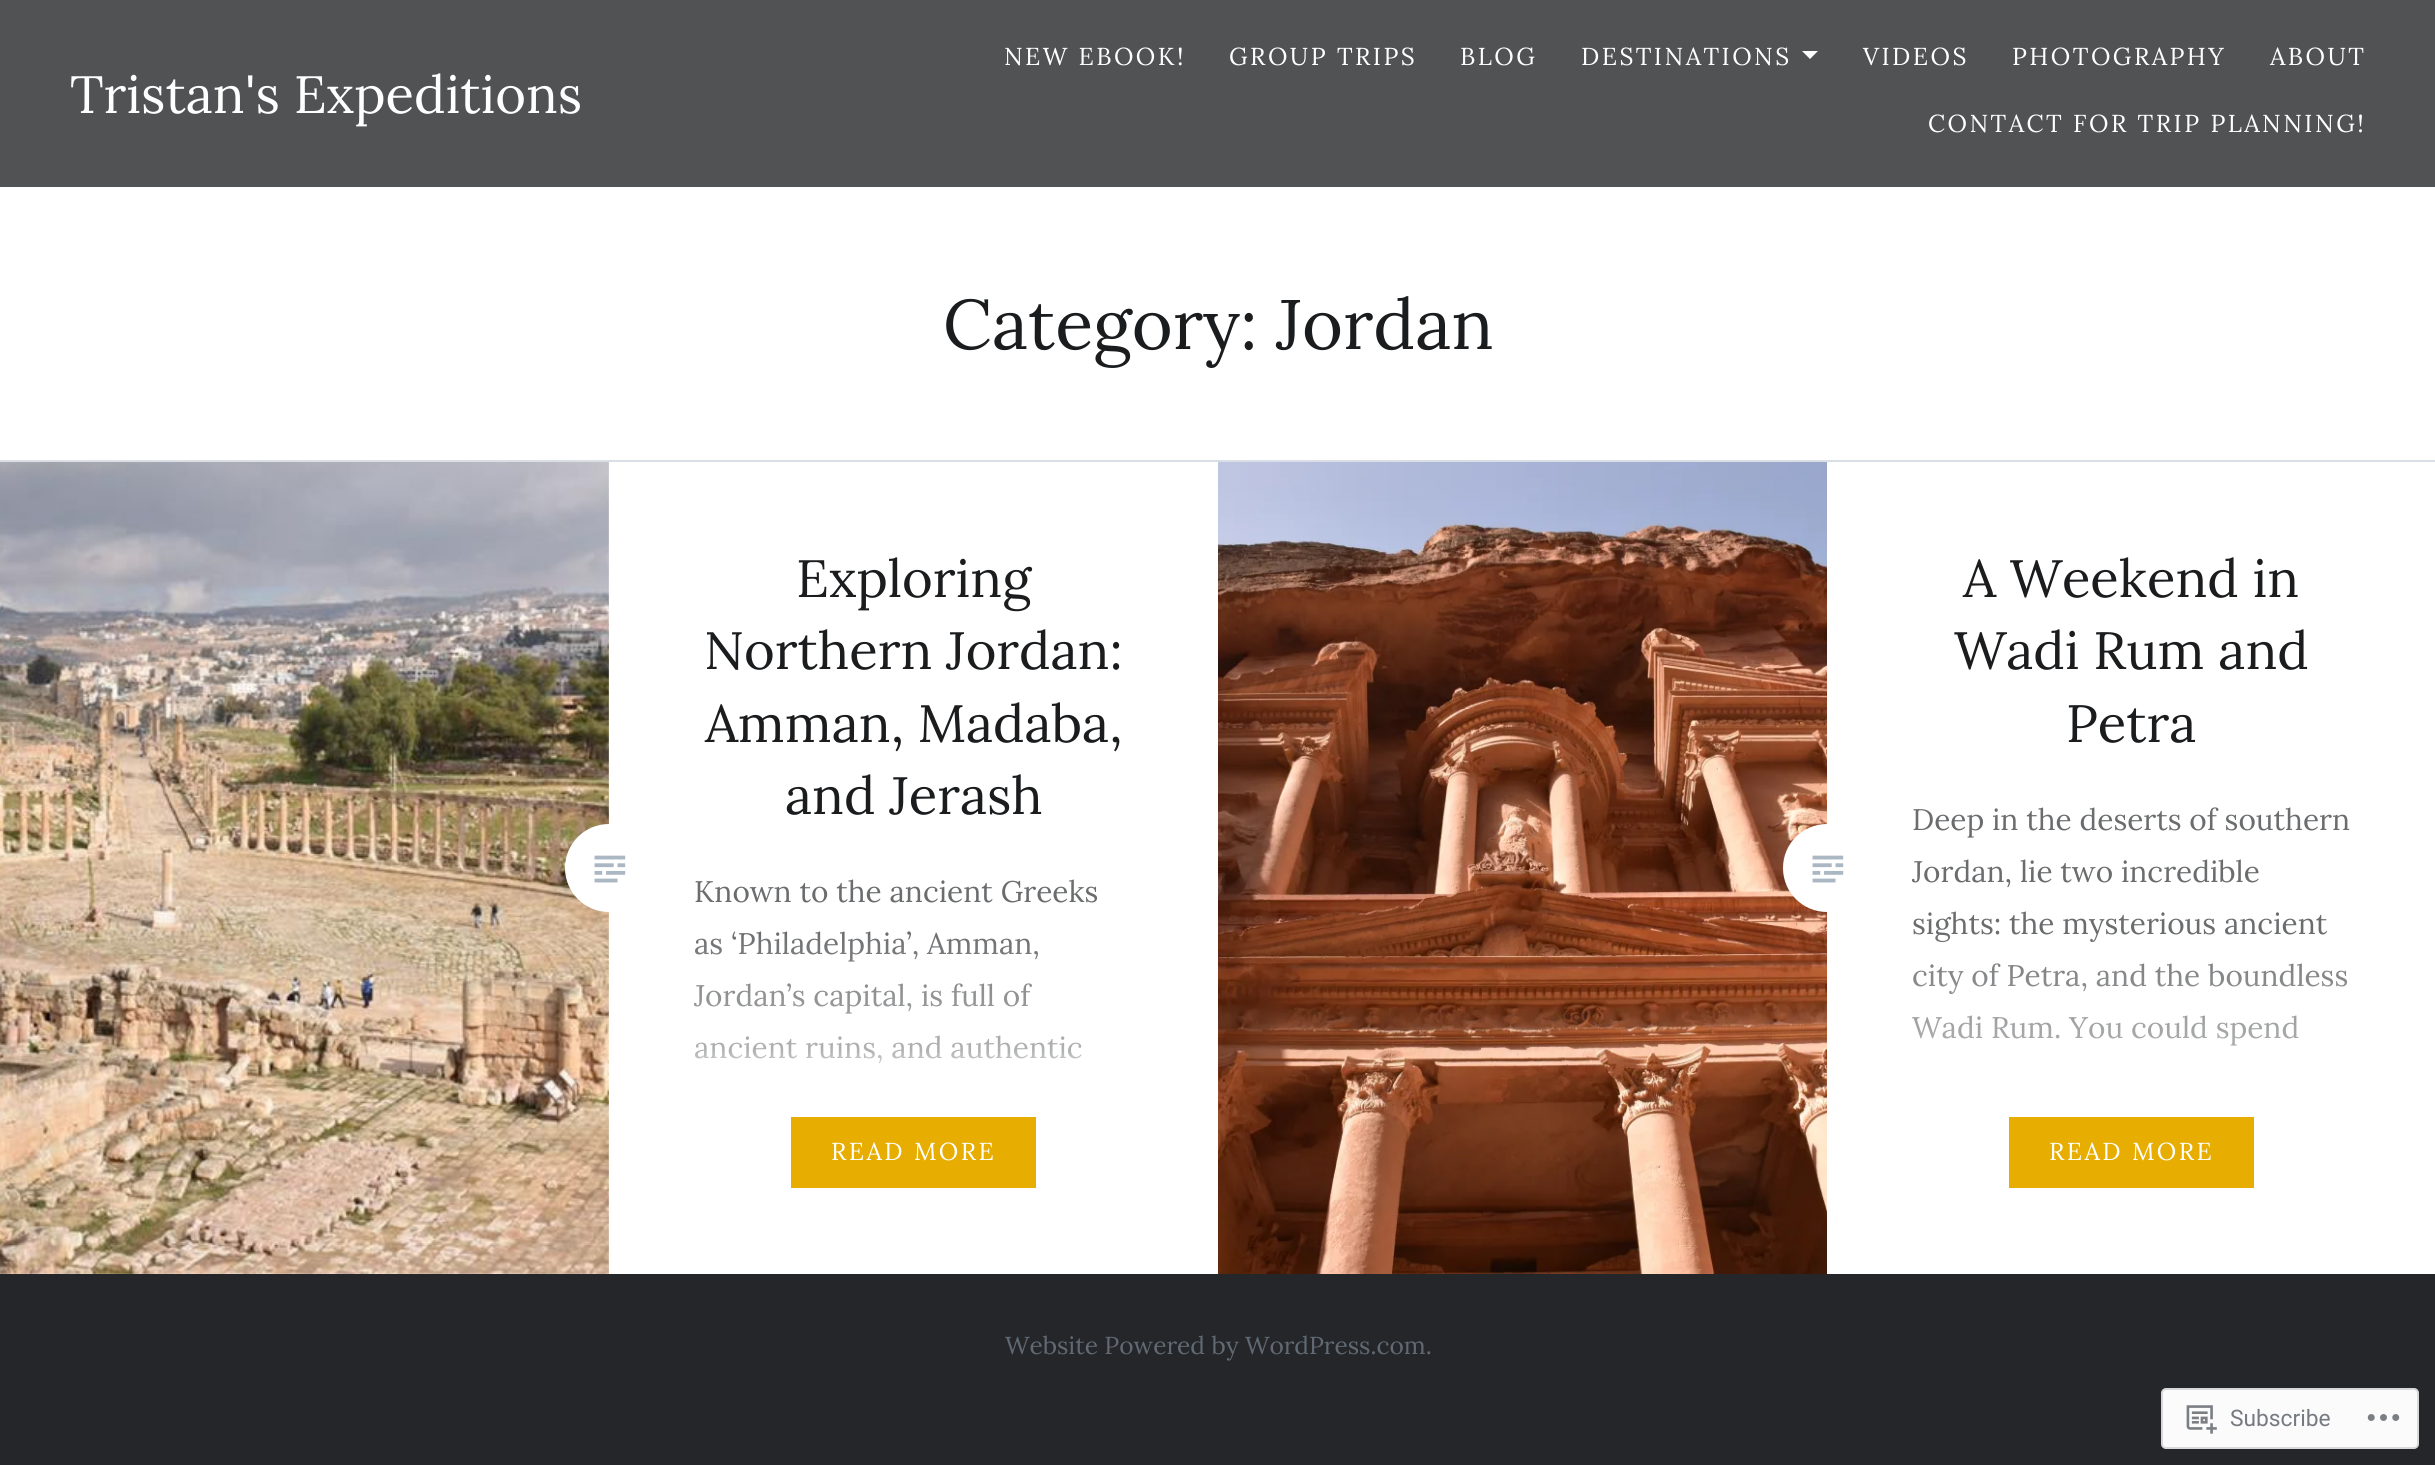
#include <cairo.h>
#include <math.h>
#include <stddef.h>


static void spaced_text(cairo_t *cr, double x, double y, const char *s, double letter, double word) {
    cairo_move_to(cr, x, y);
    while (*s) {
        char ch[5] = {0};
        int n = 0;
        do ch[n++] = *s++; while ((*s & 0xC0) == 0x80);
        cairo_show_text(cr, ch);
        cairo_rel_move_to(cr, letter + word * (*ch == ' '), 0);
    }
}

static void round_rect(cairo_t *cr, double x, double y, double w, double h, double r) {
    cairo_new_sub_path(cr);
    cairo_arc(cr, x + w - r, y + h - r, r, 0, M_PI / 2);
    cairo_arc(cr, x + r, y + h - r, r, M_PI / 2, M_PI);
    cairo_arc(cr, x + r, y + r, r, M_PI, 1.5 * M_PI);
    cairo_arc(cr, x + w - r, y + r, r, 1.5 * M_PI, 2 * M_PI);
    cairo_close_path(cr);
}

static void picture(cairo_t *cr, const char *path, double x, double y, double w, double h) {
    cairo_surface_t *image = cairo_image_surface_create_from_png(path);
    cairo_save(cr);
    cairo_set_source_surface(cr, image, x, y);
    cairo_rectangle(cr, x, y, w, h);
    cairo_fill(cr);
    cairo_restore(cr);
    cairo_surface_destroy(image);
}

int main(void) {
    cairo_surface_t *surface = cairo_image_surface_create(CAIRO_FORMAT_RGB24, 2435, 1465);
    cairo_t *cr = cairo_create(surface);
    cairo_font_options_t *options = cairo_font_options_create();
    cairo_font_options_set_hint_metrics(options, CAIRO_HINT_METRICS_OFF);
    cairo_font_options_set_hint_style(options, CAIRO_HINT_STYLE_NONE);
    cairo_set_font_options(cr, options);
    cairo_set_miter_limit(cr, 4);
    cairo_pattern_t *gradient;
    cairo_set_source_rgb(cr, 0.141, 0.149, 0.161);
    cairo_paint(cr);
    cairo_set_source_rgb(cr, 1, 1, 1);
    cairo_rectangle(cr, 0, 187, 2435, 273);
    cairo_fill(cr);
    cairo_set_source_rgb(cr, 0.314, 0.322, 0.329);
    cairo_rectangle(cr, 0, 0, 2435, 187);
    cairo_fill(cr);
    cairo_select_font_face(cr, "Lora", CAIRO_FONT_SLANT_NORMAL, CAIRO_FONT_WEIGHT_NORMAL);
    cairo_set_font_size(cr, 52.5);
    cairo_set_source_rgb(cr, 1, 1, 1);
    cairo_move_to(cr, 70, 113);
    cairo_show_text(cr, "Tristan's Expeditions");
    cairo_set_font_size(cr, 24.5);
    spaced_text(cr, 1004, 65, "NEW EBOOK!", 2.45, 0);
    spaced_text(cr, 1229, 65, "GROUP TRIPS", 2.45, 0);
    spaced_text(cr, 1460, 65, "BLOG", 2.45, 0);
    spaced_text(cr, 1581, 65, "DESTINATIONS", 2.45, 0);
    cairo_new_path(cr);
    cairo_move_to(cr, 1802, 51);
    cairo_line_to(cr, 1818, 51);
    cairo_line_to(cr, 1810, 59);
    cairo_close_path(cr);
    cairo_fill(cr);
    spaced_text(cr, 1863, 65, "VIDEOS", 2.45, 0);
    spaced_text(cr, 2012, 65, "PHOTOGRAPHY", 2.45, 0);
    spaced_text(cr, 2270, 65, "ABOUT", 2.45, 0);
    spaced_text(cr, 1928, 132, "CONTACT FOR TRIP PLANNING!", 2.45, 0);
    cairo_set_source_rgb(cr, 0.851, 0.875, 0.898);
    cairo_rectangle(cr, 0, 460, 2435, 2);
    cairo_fill(cr);
    cairo_set_font_size(cr, 70);
    cairo_set_source_rgb(cr, 0.102, 0.11, 0.118);
    cairo_move_to(cr, 943, 349);
    cairo_show_text(cr, "Category: Jordan");
    cairo_set_source_rgb(cr, 1, 1, 1);
    cairo_rectangle(cr, 0, 462, 1218, 812);
    cairo_fill(cr);
    picture(cr, "img1.png", 0, 462, 609, 812);
    cairo_arc(cr, 609, 868, 44, 0, 2 * M_PI);
    cairo_fill(cr);
    cairo_set_font_size(cr, 52.5);
    cairo_set_source_rgb(cr, 0.102, 0.11, 0.118);
    cairo_move_to(cr, 796, 597);
    cairo_show_text(cr, "Exploring");
    cairo_move_to(cr, 704, 669);
    cairo_show_text(cr, "Northern Jordan:");
    cairo_move_to(cr, 705, 742);
    cairo_show_text(cr, "Amman, Madaba,");
    cairo_move_to(cr, 785, 814);
    cairo_show_text(cr, "and Jerash");
    cairo_set_font_size(cr, 29.75);
    cairo_set_source_rgb(cr, 0.416, 0.424, 0.431);
    cairo_move_to(cr, 694, 902);
    cairo_show_text(cr, "Known to the ancient Greeks");
    cairo_move_to(cr, 694, 954);
    cairo_show_text(cr, "as ‘Philadelphia’, Amman,");
    cairo_move_to(cr, 694, 1006);
    cairo_show_text(cr, "Jordan’s capital, is full of");
    cairo_move_to(cr, 694, 1058);
    cairo_show_text(cr, "ancient ruins, and authentic");
    gradient = cairo_pattern_create_linear(914, 929, 914, 1188);
    cairo_pattern_add_color_stop_rgba(gradient, 0, 1, 1, 1, 0);
    cairo_pattern_add_color_stop_rgba(gradient, 1, 1, 1, 1, 1);
    cairo_set_source(cr, gradient);
    cairo_pattern_destroy(gradient);
    cairo_rectangle(cr, 694, 935, 388, 129);
    cairo_fill(cr);
    gradient = cairo_pattern_create_linear(914, 1051, 914, 1091);
    cairo_pattern_add_color_stop_rgba(gradient, 0, 1, 1, 1, 0);
    cairo_pattern_add_color_stop_rgba(gradient, 1, 1, 1, 1, 1);
    cairo_set_source(cr, gradient);
    cairo_pattern_destroy(gradient);
    cairo_rectangle(cr, 695, 1052, 387, 11);
    cairo_fill(cr);
    cairo_set_source_rgb(cr, 0.906, 0.682, 0.004);
    cairo_rectangle(cr, 791, 1117, 245, 71);
    cairo_fill(cr);
    cairo_set_font_size(cr, 24.5);
    cairo_set_source_rgb(cr, 1, 1, 1);
    spaced_text(cr, 831, 1160, "READ MORE", 2.45, 0);
    picture(cr, "img2.png", 594, 855, 32, 28);
    cairo_rectangle(cr, 1827, 462, 608, 812);
    cairo_fill(cr);
    picture(cr, "img3.png", 1218, 462, 609, 812);
    cairo_arc(cr, 1827, 868, 44, 0, 2 * M_PI);
    cairo_fill(cr);
    cairo_set_font_size(cr, 52.5);
    cairo_set_source_rgb(cr, 0.102, 0.11, 0.118);
    cairo_move_to(cr, 1963, 597);
    cairo_show_text(cr, "A Weekend in");
    cairo_move_to(cr, 1954, 669);
    cairo_show_text(cr, "Wadi Rum and");
    cairo_move_to(cr, 2066, 742);
    cairo_show_text(cr, "Petra");
    cairo_set_font_size(cr, 29.75);
    cairo_set_source_rgb(cr, 0.416, 0.424, 0.431);
    cairo_move_to(cr, 1912, 830);
    cairo_show_text(cr, "Deep in the deserts of southern");
    cairo_move_to(cr, 1912, 882);
    cairo_show_text(cr, "Jordan, lie two incredible");
    cairo_move_to(cr, 1912, 934);
    cairo_show_text(cr, "sights: the mysterious ancient");
    cairo_move_to(cr, 1912, 986);
    cairo_show_text(cr, "city of Petra, and the boundless");
    cairo_move_to(cr, 1912, 1038);
    cairo_show_text(cr, "Wadi Rum. You could spend");
    cairo_set_source_rgb(cr, 0.906, 0.682, 0.004);
    cairo_rectangle(cr, 2009, 1117, 245, 71);
    cairo_fill(cr);
    cairo_set_font_size(cr, 24.5);
    cairo_set_source_rgb(cr, 1, 1, 1);
    spaced_text(cr, 2049, 1160, "READ MORE", 2.45, 0);
    gradient = cairo_pattern_create_linear(2132, 929, 2132, 1188);
    cairo_pattern_add_color_stop_rgba(gradient, 0, 1, 1, 1, 0);
    cairo_pattern_add_color_stop_rgba(gradient, 1, 1, 1, 1, 1);
    cairo_set_source(cr, gradient);
    cairo_pattern_destroy(gradient);
    cairo_rectangle(cr, 1912, 935, 436, 111);
    cairo_fill(cr);
    picture(cr, "img2.png", 1812, 855, 32, 28);
    cairo_set_source_rgb(cr, 0.38, 0.416, 0.455);
    cairo_move_to(cr, 1005, 1354);
    cairo_show_text(cr, "Website Powered by WordPress.com.");
    cairo_set_source_rgb(cr, 0.984, 0.984, 0.984);
    round_rect(cr, 2162, 1389, 256, 59, 4);
    cairo_fill_preserve(cr);
    cairo_set_source_rgb(cr, 0.847, 0.847, 0.855);
    cairo_stroke(cr);
    picture(cr, "img4.png", 2186, 1405, 31, 29);
    cairo_select_font_face(cr, "Roboto", CAIRO_FONT_SLANT_NORMAL, CAIRO_FONT_WEIGHT_NORMAL);
    cairo_set_font_size(cr, 22.75);
    cairo_set_source_rgb(cr, 0.463, 0.478, 0.502);
    cairo_move_to(cr, 2230, 1426);
    cairo_show_text(cr, "Subscribe");
    picture(cr, "img5.png", 2367, 1414, 33, 7);
    cairo_surface_write_to_png(surface, "page.png");
    cairo_font_options_destroy(options);
    cairo_destroy(cr);
    cairo_surface_destroy(surface);
    return 0;
}
